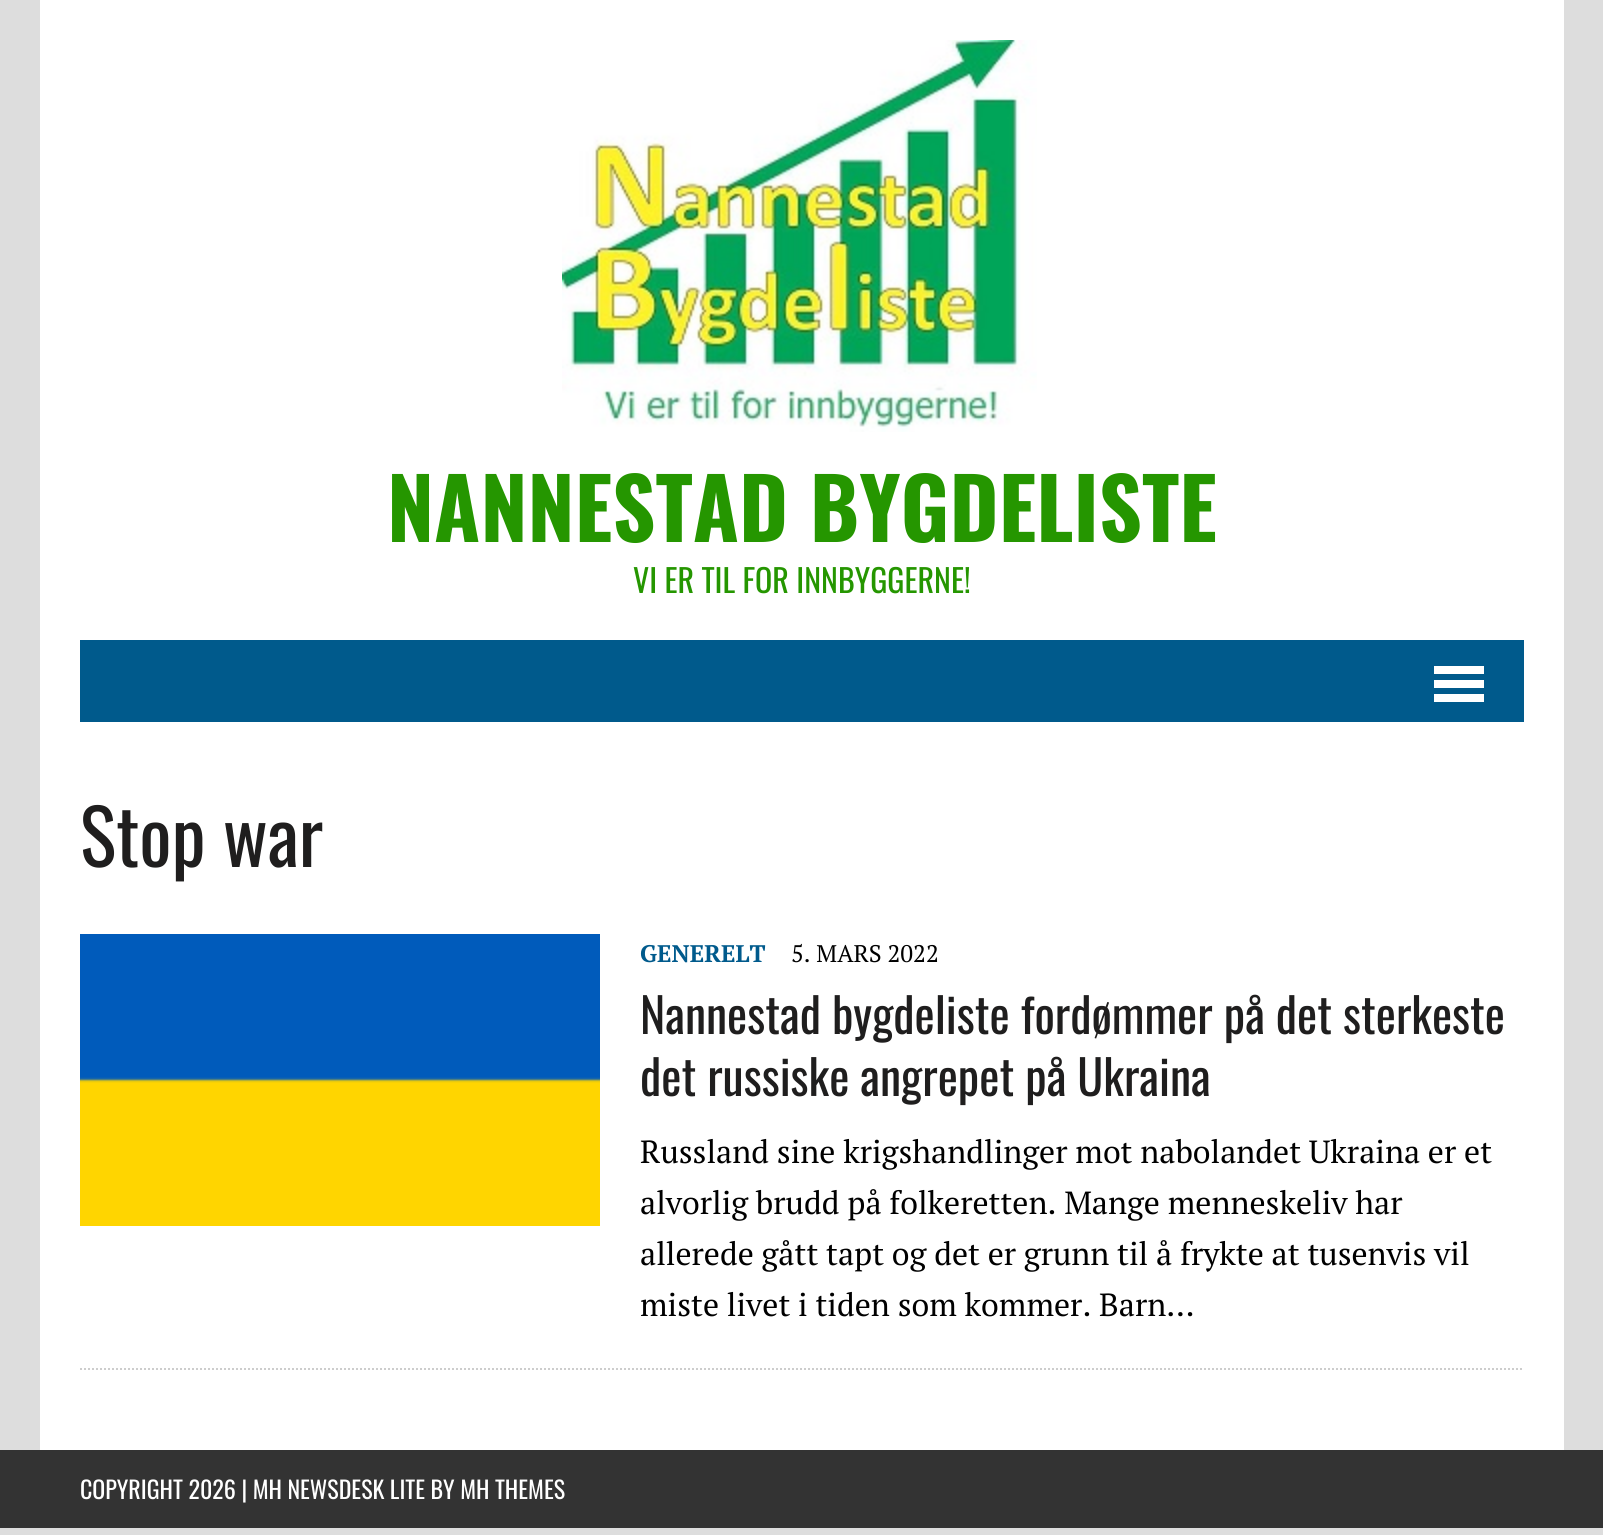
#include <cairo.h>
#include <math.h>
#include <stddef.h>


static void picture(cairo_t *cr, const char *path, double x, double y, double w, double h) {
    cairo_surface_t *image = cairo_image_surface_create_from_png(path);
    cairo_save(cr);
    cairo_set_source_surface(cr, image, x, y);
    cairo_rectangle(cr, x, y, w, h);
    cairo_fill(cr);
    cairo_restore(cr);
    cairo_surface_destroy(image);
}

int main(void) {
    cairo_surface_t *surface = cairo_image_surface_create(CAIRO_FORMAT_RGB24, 1603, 1535);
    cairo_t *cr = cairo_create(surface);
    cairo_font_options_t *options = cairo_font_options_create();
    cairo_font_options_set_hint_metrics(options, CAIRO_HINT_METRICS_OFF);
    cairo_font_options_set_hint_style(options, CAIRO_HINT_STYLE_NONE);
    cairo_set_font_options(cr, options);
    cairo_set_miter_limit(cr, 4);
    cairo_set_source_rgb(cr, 0.867, 0.867, 0.867);
    cairo_paint(cr);
    cairo_set_source_rgb(cr, 1, 1, 1);
    cairo_rectangle(cr, 40, 0, 1524, 1450);
    cairo_fill(cr);
    picture(cr, "img1.png", 562, 40, 475, 392);
    cairo_select_font_face(cr, "Oswald", CAIRO_FONT_SLANT_NORMAL, CAIRO_FONT_WEIGHT_BOLD);
    cairo_set_font_size(cr, 84);
    cairo_set_source_rgb(cr, 0.145, 0.588, 0);
    cairo_move_to(cr, 387, 542);
    cairo_show_text(cr, "NANNESTAD BYGDELISTE");
    cairo_select_font_face(cr, "Oswald", CAIRO_FONT_SLANT_NORMAL, CAIRO_FONT_WEIGHT_NORMAL);
    cairo_set_font_size(cr, 32);
    cairo_move_to(cr, 633, 593);
    cairo_show_text(cr, "VI ER TIL FOR INNBYGGERNE!");
    cairo_set_source_rgb(cr, 0, 0.353, 0.549);
    cairo_rectangle(cr, 80, 640, 1444, 82);
    cairo_fill(cr);
    cairo_set_source_rgb(cr, 1, 1, 1);
    cairo_rectangle(cr, 1434, 666, 50, 8);
    cairo_fill(cr);
    cairo_rectangle(cr, 1434, 680, 50, 8);
    cairo_fill(cr);
    cairo_rectangle(cr, 1434, 694, 50, 8);
    cairo_fill(cr);
    cairo_set_font_size(cr, 76);
    cairo_set_source_rgb(cr, 0.122, 0.118, 0.118);
    cairo_move_to(cr, 80, 867);
    cairo_show_text(cr, "Stop war");
    picture(cr, "img2.png", 80, 934, 520, 292);
    cairo_select_font_face(cr, "PT Serif", CAIRO_FONT_SLANT_NORMAL, CAIRO_FONT_WEIGHT_BOLD);
    cairo_set_font_size(cr, 24);
    cairo_set_source_rgb(cr, 0, 0.353, 0.549);
    cairo_move_to(cr, 640, 962);
    cairo_show_text(cr, "GENERELT");
    cairo_select_font_face(cr, "PT Serif", CAIRO_FONT_SLANT_NORMAL, CAIRO_FONT_WEIGHT_NORMAL);
    cairo_set_source_rgb(cr, 0, 0, 0);
    cairo_move_to(cr, 791, 962);
    cairo_show_text(cr, "5. MARS 2022");
    cairo_select_font_face(cr, "Oswald", CAIRO_FONT_SLANT_NORMAL, CAIRO_FONT_WEIGHT_NORMAL);
    cairo_set_font_size(cr, 48);
    cairo_set_source_rgb(cr, 0.122, 0.118, 0.118);
    cairo_move_to(cr, 640, 1034);
    cairo_show_text(cr, "Nannestad bygdeliste fordømmer på det sterkeste");
    cairo_move_to(cr, 640, 1096);
    cairo_show_text(cr, "det russiske angrepet på Ukraina");
    cairo_select_font_face(cr, "PT Serif", CAIRO_FONT_SLANT_NORMAL, CAIRO_FONT_WEIGHT_NORMAL);
    cairo_set_font_size(cr, 32);
    cairo_set_source_rgb(cr, 0, 0, 0);
    cairo_move_to(cr, 640, 1163);
    cairo_show_text(cr, "Russland sine krigshandlinger mot nabolandet Ukraina er et");
    cairo_move_to(cr, 640, 1214);
    cairo_show_text(cr, "alvorlig brudd på folkeretten. Mange menneskeliv har");
    cairo_move_to(cr, 640, 1265);
    cairo_show_text(cr, "allerede gått tapt og det er grunn til å frykte at tusenvis vil");
    cairo_move_to(cr, 640, 1316);
    cairo_show_text(cr, "miste livet i tiden som kommer. Barn…");
    cairo_new_path(cr);
    cairo_move_to(cr, 80, 1369);
    cairo_line_to(cr, 1524, 1369);
    cairo_set_source_rgb(cr, 0.804, 0.804, 0.804);
    cairo_set_dash(cr, (double[]){2, 2}, 2, 0);
    cairo_stroke(cr);
    cairo_set_source_rgb(cr, 0.2, 0.2, 0.2);
    cairo_rectangle(cr, 0, 1450, 1603, 78);
    cairo_fill(cr);
    cairo_select_font_face(cr, "Oswald", CAIRO_FONT_SLANT_NORMAL, CAIRO_FONT_WEIGHT_NORMAL);
    cairo_set_font_size(cr, 24);
    cairo_set_source_rgb(cr, 1, 1, 1);
    cairo_move_to(cr, 80, 1499);
    cairo_show_text(cr, "COPYRIGHT 2026 | MH NEWSDESK LITE BY MH THEMES");
    cairo_surface_write_to_png(surface, "page.png");
    cairo_font_options_destroy(options);
    cairo_destroy(cr);
    cairo_surface_destroy(surface);
    return 0;
}
